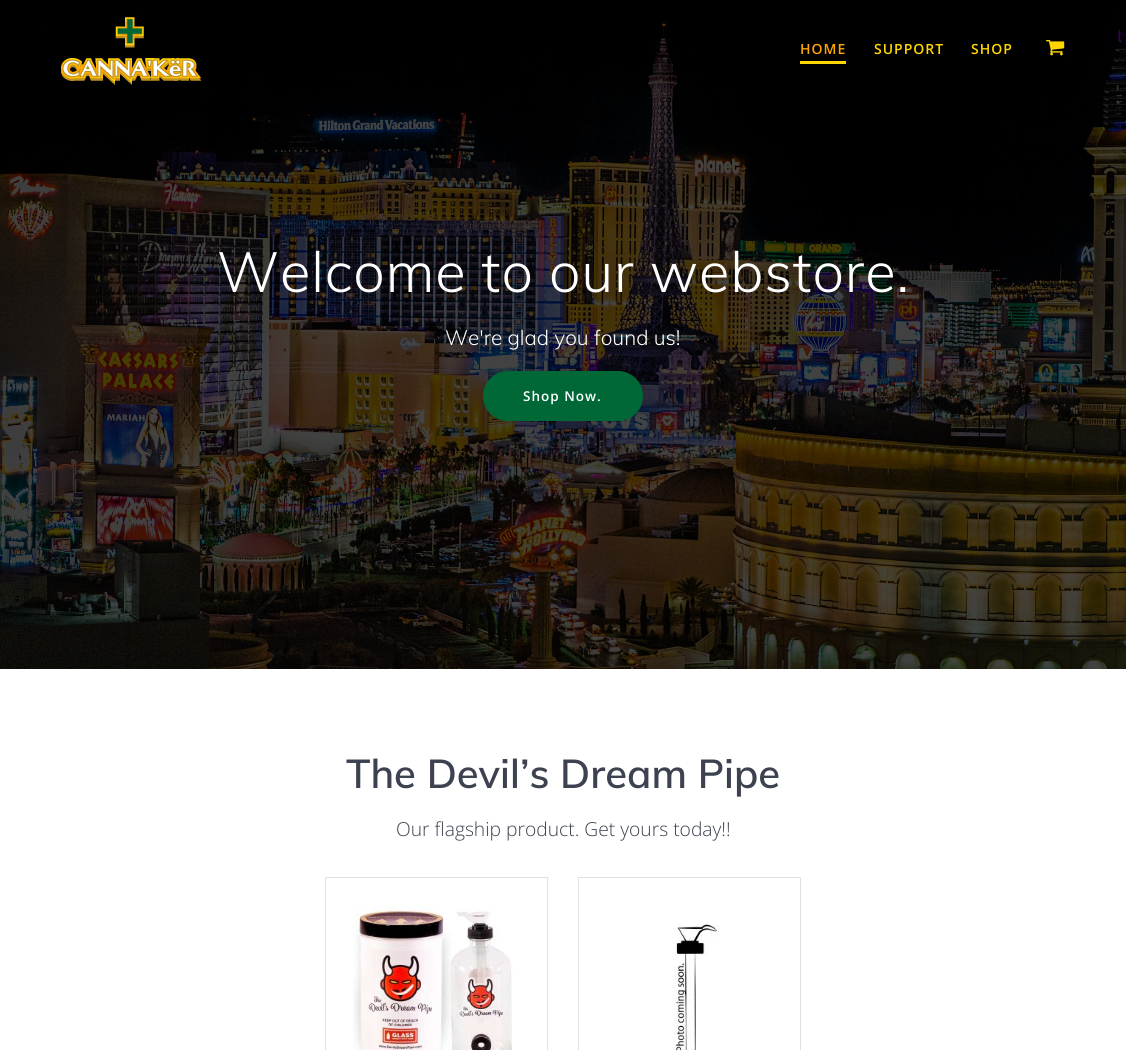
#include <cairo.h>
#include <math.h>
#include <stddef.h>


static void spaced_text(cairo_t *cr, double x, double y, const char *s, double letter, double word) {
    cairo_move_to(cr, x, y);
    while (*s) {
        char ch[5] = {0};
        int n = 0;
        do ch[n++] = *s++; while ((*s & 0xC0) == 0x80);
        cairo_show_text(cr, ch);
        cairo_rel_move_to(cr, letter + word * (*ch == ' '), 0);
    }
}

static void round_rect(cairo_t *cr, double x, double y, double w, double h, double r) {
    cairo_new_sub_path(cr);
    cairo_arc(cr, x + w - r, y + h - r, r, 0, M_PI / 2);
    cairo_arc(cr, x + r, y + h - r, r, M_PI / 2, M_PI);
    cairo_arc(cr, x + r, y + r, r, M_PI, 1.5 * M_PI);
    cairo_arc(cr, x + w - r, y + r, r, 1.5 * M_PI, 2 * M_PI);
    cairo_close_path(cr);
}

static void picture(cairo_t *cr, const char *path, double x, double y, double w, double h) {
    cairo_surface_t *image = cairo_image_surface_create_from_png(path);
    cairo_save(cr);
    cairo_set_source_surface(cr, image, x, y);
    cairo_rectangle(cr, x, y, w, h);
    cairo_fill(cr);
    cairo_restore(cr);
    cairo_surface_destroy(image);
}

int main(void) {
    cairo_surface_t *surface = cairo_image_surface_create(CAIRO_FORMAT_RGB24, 1126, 1050);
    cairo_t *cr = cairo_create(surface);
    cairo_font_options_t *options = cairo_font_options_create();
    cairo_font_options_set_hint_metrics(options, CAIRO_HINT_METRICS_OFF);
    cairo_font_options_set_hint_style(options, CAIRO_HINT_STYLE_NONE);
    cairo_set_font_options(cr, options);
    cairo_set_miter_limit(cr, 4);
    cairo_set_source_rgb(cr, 1, 1, 1);
    cairo_paint(cr);
    picture(cr, "img3.png", 0, 12, 1126, 657);
    picture(cr, "img1.png", 61, 17, 140, 68);
    cairo_set_source_rgb(cr, 1, 0.843, 0);
    cairo_rectangle(cr, 800, 61, 46, 3);
    cairo_fill(cr);
    cairo_select_font_face(cr, "Open Sans SemiBold", CAIRO_FONT_SLANT_NORMAL, CAIRO_FONT_WEIGHT_NORMAL);
    cairo_set_font_size(cr, 14);
    cairo_set_source_rgb(cr, 1, 0.647, 0);
    spaced_text(cr, 800, 54, "HOME", 1, 0);
    cairo_set_source_rgb(cr, 1, 0.843, 0);
    spaced_text(cr, 874, 54, "SUPPORT", 1, 0);
    spaced_text(cr, 971, 54, "SHOP", 1, 0);
    picture(cr, "img2.png", 1046, 40, 19, 16);
    cairo_set_source_rgb(cr, 0, 0, 0);
    cairo_rectangle(cr, 0, 0, 1126, 12);
    cairo_fill(cr);
    cairo_select_font_face(cr, "Muli Light", CAIRO_FONT_SLANT_NORMAL, CAIRO_FONT_WEIGHT_NORMAL);
    cairo_set_font_size(cr, 56);
    cairo_set_source_rgb(cr, 1, 1, 1);
    spaced_text(cr, 217, 292, "Welcome to our webstore.", 0.9, 0);
    cairo_set_font_size(cr, 20.75);
    cairo_move_to(cr, 445, 345);
    cairo_show_text(cr, "We're glad you found us!");
    cairo_set_source_rgb(cr, 0, 0.408, 0.216);
    round_rect(cr, 484, 372, 158, 48, 24);
    cairo_fill_preserve(cr);
    cairo_stroke(cr);
    cairo_select_font_face(cr, "Open Sans SemiBold", CAIRO_FONT_SLANT_NORMAL, CAIRO_FONT_WEIGHT_NORMAL);
    cairo_set_font_size(cr, 13.5);
    cairo_set_source_rgb(cr, 1, 1, 1);
    spaced_text(cr, 523, 401, "Shop Now.", 1, 0);
    cairo_select_font_face(cr, "Muli SemiBold", CAIRO_FONT_SLANT_NORMAL, CAIRO_FONT_WEIGHT_NORMAL);
    cairo_set_font_size(cr, 40);
    cairo_set_source_rgb(cr, 0.235, 0.259, 0.31);
    cairo_move_to(cr, 346, 788);
    cairo_show_text(cr, "The Devil’s Dream Pipe");
    cairo_select_font_face(cr, "Open Sans Light", CAIRO_FONT_SLANT_NORMAL, CAIRO_FONT_WEIGHT_NORMAL);
    cairo_set_font_size(cr, 19.25);
    cairo_move_to(cr, 396, 836);
    cairo_show_text(cr, "Our flagship product. Get yours today!!");
    cairo_set_source_rgb(cr, 0.878, 0.882, 0.882);
    cairo_rectangle(cr, 325, 877, 223, 1);
    cairo_fill(cr);
    cairo_new_path(cr);
    cairo_move_to(cr, 548, 877);
    cairo_line_to(cr, 548, 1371);
    cairo_line_to(cr, 547, 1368);
    cairo_line_to(cr, 547, 878);
    cairo_close_path(cr);
    cairo_fill(cr);
    cairo_new_path(cr);
    cairo_move_to(cr, 325, 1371);
    cairo_line_to(cr, 325, 877);
    cairo_line_to(cr, 326, 878);
    cairo_line_to(cr, 326, 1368);
    cairo_close_path(cr);
    cairo_fill(cr);
    picture(cr, "img4.png", 353, 904, 160, 146);
    cairo_rectangle(cr, 578, 877, 223, 1);
    cairo_fill(cr);
    cairo_new_path(cr);
    cairo_move_to(cr, 801, 877);
    cairo_line_to(cr, 801, 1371);
    cairo_line_to(cr, 800, 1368);
    cairo_line_to(cr, 800, 878);
    cairo_close_path(cr);
    cairo_fill(cr);
    cairo_new_path(cr);
    cairo_move_to(cr, 578, 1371);
    cairo_line_to(cr, 578, 877);
    cairo_line_to(cr, 579, 878);
    cairo_line_to(cr, 579, 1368);
    cairo_close_path(cr);
    cairo_fill(cr);
    picture(cr, "img5.png", 673, 923, 47, 127);
    cairo_surface_write_to_png(surface, "page.png");
    cairo_font_options_destroy(options);
    cairo_destroy(cr);
    cairo_surface_destroy(surface);
    return 0;
}
